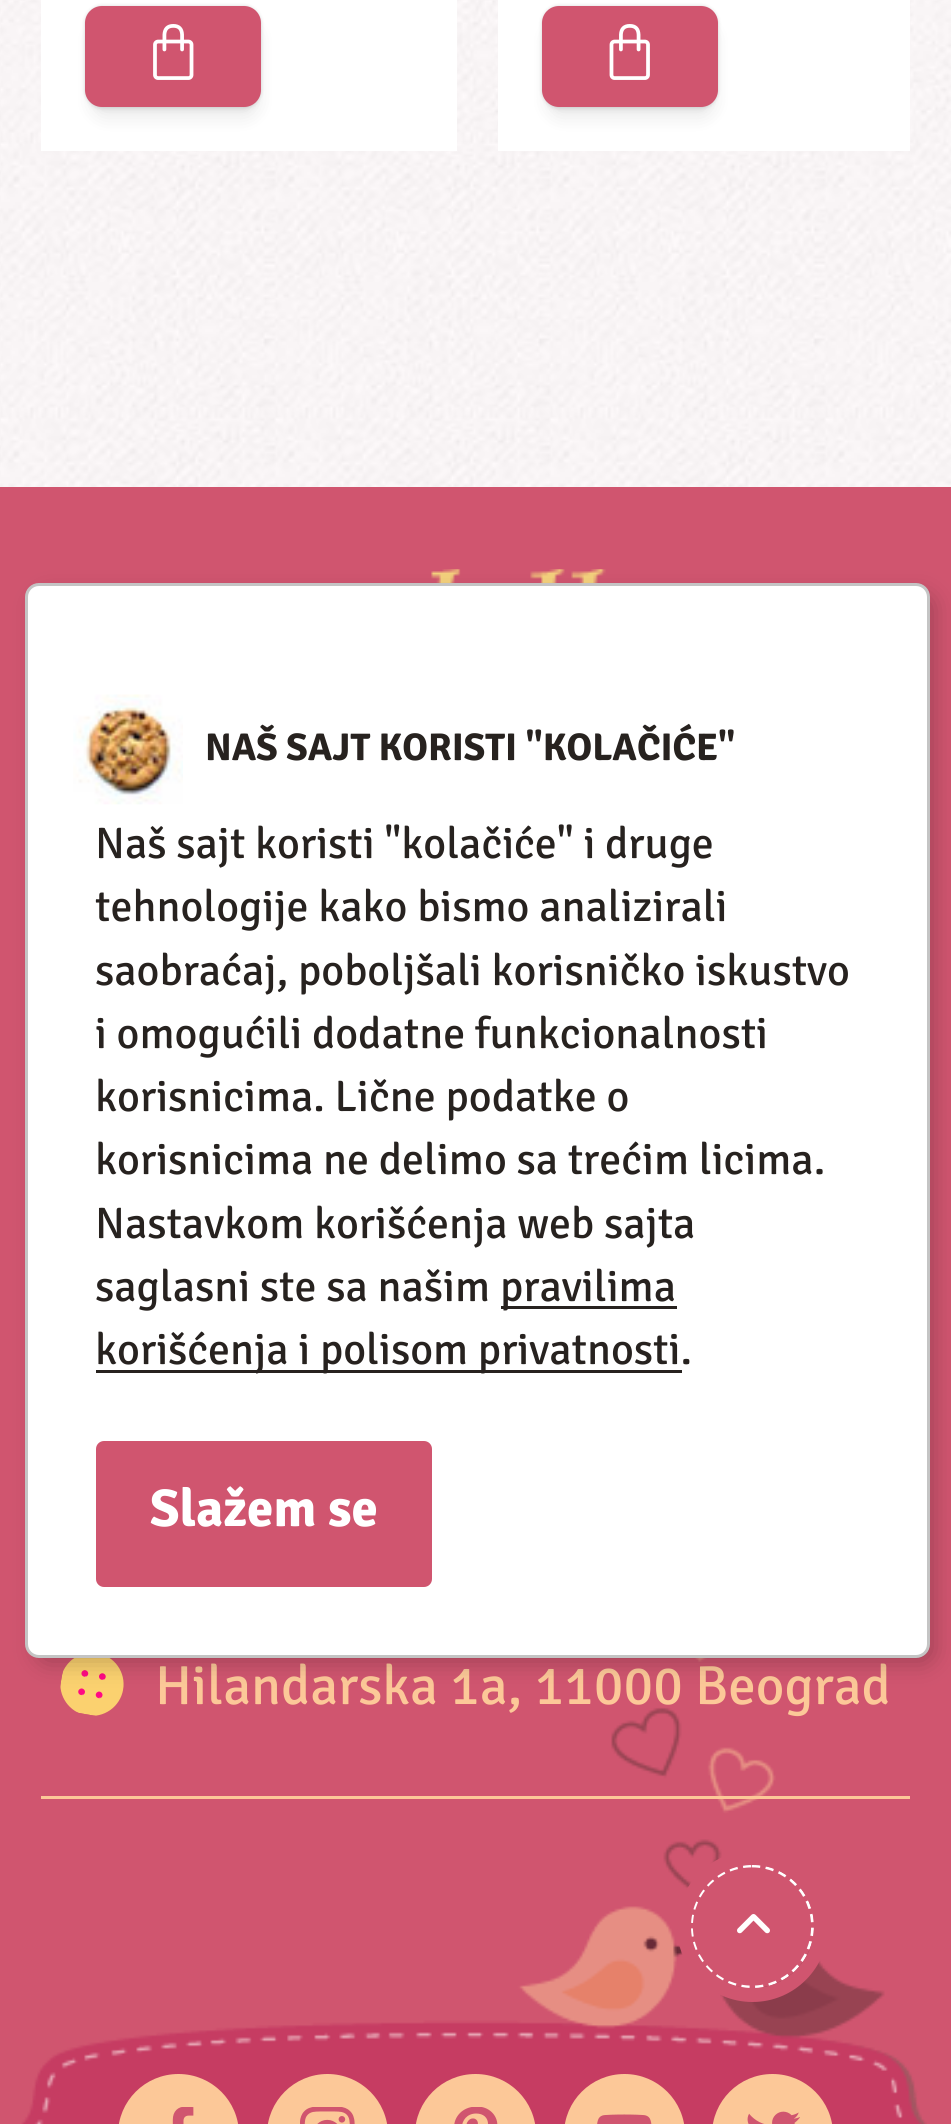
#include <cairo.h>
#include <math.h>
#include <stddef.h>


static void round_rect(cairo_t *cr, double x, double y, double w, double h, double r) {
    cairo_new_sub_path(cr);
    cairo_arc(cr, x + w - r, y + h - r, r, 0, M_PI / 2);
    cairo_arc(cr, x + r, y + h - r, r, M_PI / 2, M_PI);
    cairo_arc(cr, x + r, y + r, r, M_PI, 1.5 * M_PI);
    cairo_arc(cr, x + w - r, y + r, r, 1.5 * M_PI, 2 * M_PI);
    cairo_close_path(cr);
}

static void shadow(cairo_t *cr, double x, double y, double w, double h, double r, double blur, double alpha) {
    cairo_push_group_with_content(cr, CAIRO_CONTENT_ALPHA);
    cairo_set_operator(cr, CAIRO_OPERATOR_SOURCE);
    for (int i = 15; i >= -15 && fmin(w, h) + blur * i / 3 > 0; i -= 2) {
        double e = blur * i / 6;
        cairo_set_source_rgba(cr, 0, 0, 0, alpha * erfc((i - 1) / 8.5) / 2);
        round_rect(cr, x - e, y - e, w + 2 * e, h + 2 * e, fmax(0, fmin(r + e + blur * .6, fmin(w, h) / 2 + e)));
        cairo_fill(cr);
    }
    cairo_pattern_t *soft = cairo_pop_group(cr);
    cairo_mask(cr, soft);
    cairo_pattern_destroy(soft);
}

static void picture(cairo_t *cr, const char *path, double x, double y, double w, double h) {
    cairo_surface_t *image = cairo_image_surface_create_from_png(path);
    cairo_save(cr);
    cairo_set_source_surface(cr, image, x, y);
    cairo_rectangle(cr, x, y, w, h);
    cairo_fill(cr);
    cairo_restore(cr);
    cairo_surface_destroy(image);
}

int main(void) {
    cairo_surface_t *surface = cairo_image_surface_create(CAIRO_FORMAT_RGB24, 951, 2124);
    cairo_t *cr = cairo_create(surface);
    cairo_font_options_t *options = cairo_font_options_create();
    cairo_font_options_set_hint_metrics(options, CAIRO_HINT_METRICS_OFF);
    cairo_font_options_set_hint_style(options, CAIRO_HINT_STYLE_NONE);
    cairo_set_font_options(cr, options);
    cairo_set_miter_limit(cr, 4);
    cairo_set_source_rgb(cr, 1, 1, 1);
    cairo_paint(cr);
    picture(cr, "img1.png", 0, 0, 951, 487);
    cairo_set_source_rgba(cr, 0.816, 0.333, 0.435, 0.03);
    cairo_rectangle(cr, 0, 0, 951, 487);
    cairo_fill(cr);
    cairo_set_source_rgb(cr, 1, 1, 1);
    cairo_rectangle(cr, 41, 0, 416, 151);
    cairo_fill(cr);
    cairo_set_source_rgb(cr, 0, 0, 0);
    shadow(cr, 91, 25, 168, 93, 14, 9, 0.08);
    shadow(cr, 88, 11, 171, 99, 14, 3, 0.06);
    shadow(cr, 85, 6, 176, 101, 17, 2, 0.15);
    cairo_set_source_rgb(cr, 0.816, 0.333, 0.435);
    round_rect(cr, 85, 6, 176, 101, 17);
    cairo_fill(cr);
    picture(cr, "img2.png", 153, 24, 41, 56);
    cairo_set_source_rgb(cr, 1, 1, 1);
    cairo_rectangle(cr, 498, 0, 412, 151);
    cairo_fill(cr);
    cairo_set_source_rgb(cr, 0, 0, 0);
    shadow(cr, 547, 25, 168, 93, 14, 9, 0.08);
    shadow(cr, 545, 11, 170, 99, 14, 3, 0.06);
    shadow(cr, 542, 6, 176, 101, 17, 2, 0.15);
    cairo_set_source_rgb(cr, 0.816, 0.333, 0.435);
    round_rect(cr, 542, 6, 176, 101, 17);
    cairo_fill(cr);
    picture(cr, "img3.png", 609, 24, 41, 56);
    cairo_rectangle(cr, 0, 487, 951, 1637);
    cairo_fill(cr);
    picture(cr, "img5.png", 431, 569, 175, 14);
    cairo_set_source_rgb(cr, 0.988, 0.784, 0.596);
    cairo_rectangle(cr, 41, 1796, 869, 3);
    cairo_fill(cr);
    picture(cr, "img12.png", 60, 1658, 64, 58);
    cairo_select_font_face(cr, "Signika", CAIRO_FONT_SLANT_NORMAL, CAIRO_FONT_WEIGHT_NORMAL);
    cairo_set_font_size(cr, 55);
    cairo_move_to(cr, 155, 1704);
    cairo_show_text(cr, "Hilandarska 1a, 11000 Beograd");
    picture(cr, "img6.png", 21, 1658, 906, 466);
    cairo_set_source_rgb(cr, 0, 0, 0);
    shadow(cr, 39, 597, 893, 1064, 8, 12.5, 0.25);
    cairo_set_source_rgb(cr, 1, 1, 1);
    round_rect(cr, 26.5, 584.5, 902, 1072, 12.5);
    cairo_fill_preserve(cr);
    cairo_set_source_rgb(cr, 0.769, 0.769, 0.769);
    cairo_set_line_width(cr, 3);
    cairo_stroke(cr);
    picture(cr, "img4.png", 73, 694, 110, 111);
    cairo_select_font_face(cr, "Signika", CAIRO_FONT_SLANT_NORMAL, CAIRO_FONT_WEIGHT_BOLD);
    cairo_set_font_size(cr, 38.5);
    cairo_set_source_rgb(cr, 0.153, 0.133, 0.122);
    cairo_move_to(cr, 205, 760);
    cairo_show_text(cr, "NAŠ SAJT KORISTI \"KOLAČIĆE\"");
    cairo_select_font_face(cr, "Signika", CAIRO_FONT_SLANT_NORMAL, CAIRO_FONT_WEIGHT_NORMAL);
    cairo_set_font_size(cr, 44);
    cairo_move_to(cr, 95, 858);
    cairo_show_text(cr, "Naš sajt koristi \"kolačiće\" i druge");
    cairo_move_to(cr, 95, 921);
    cairo_show_text(cr, "tehnologije kako bismo analizirali");
    cairo_move_to(cr, 95, 985);
    cairo_show_text(cr, "saobraćaj, poboljšali korisničko iskustvo");
    cairo_move_to(cr, 95, 1048);
    cairo_show_text(cr, "i omogućili dodatne funkcionalnosti");
    cairo_move_to(cr, 95, 1111);
    cairo_show_text(cr, "korisnicima. Lične podatke o");
    cairo_move_to(cr, 95, 1174);
    cairo_show_text(cr, "korisnicima ne delimo sa trećim licima.");
    cairo_move_to(cr, 95, 1238);
    cairo_show_text(cr, "Nastavkom korišćenja web sajta");
    cairo_move_to(cr, 95, 1301);
    cairo_show_text(cr, "saglasni ste sa našim");
    cairo_rectangle(cr, 501, 1306, 176, 3);
    cairo_fill(cr);
    cairo_move_to(cr, 500, 1301);
    cairo_show_text(cr, "pravilima");
    cairo_rectangle(cr, 96, 1370, 586, 3);
    cairo_fill(cr);
    cairo_move_to(cr, 95, 1364);
    cairo_show_text(cr, "korišćenja i polisom privatnosti.");
    cairo_set_source_rgb(cr, 0.816, 0.333, 0.435);
    round_rect(cr, 96, 1441, 336, 146, 8);
    cairo_fill(cr);
    cairo_select_font_face(cr, "Signika", CAIRO_FONT_SLANT_NORMAL, CAIRO_FONT_WEIGHT_BOLD);
    cairo_set_font_size(cr, 53);
    cairo_set_source_rgb(cr, 1, 1, 1);
    cairo_move_to(cr, 150, 1526);
    cairo_show_text(cr, "Slažem se");
    cairo_set_source_rgb(cr, 0.988, 0.784, 0.596);
    round_rect(cr, 118, 2074, 121, 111, 60.5);
    cairo_fill(cr);
    picture(cr, "img7.png", 172, 2107, 22, 17);
    round_rect(cr, 267, 2074, 121, 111, 60.5);
    cairo_fill(cr);
    picture(cr, "img8.png", 300, 2107, 55, 17);
    round_rect(cr, 415, 2074, 121, 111, 60.5);
    cairo_fill(cr);
    picture(cr, "img9.png", 454, 2107, 44, 17);
    round_rect(cr, 564, 2074, 121, 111, 60.5);
    cairo_fill(cr);
    picture(cr, "img10.png", 597, 2114, 55, 10);
    round_rect(cr, 712, 2074, 121, 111, 60.5);
    cairo_fill(cr);
    picture(cr, "img11.png", 747, 2111, 53, 13);
    cairo_set_source_rgb(cr, 0.816, 0.333, 0.435);
    round_rect(cr, 690, 1865, 124, 123, 61.5);
    cairo_fill(cr);
    cairo_new_path(cr);
    cairo_move_to(cr, 752, 1866);
    cairo_curve_to(cr, 785.5, 1866, 812.5, 1893, 812.5, 1926.5);
    cairo_curve_to(cr, 812.5, 1960, 785.5, 1987, 752, 1987);
    cairo_curve_to(cr, 718.5, 1987, 691.5, 1960, 691.5, 1926.5);
    cairo_curve_to(cr, 691.5, 1893, 718.5, 1866, 752, 1866);
    cairo_close_path(cr);
    cairo_set_source_rgb(cr, 1, 1, 1);
    cairo_set_line_width(cr, 2.8);
    cairo_set_dash(cr, (double[]){8.25, 5.5}, 2, 0);
    cairo_stroke(cr);
    picture(cr, "img13.png", 737, 1914, 33, 20);
    cairo_arc(cr, 752.5, 1926.5, 68.5, 0, 2 * M_PI);
    cairo_set_source_rgb(cr, 0.816, 0.333, 0.435);
    cairo_set_line_width(cr, 14);
    cairo_set_dash(cr, NULL, 0, 0);
    cairo_stroke(cr);
    cairo_surface_write_to_png(surface, "page.png");
    cairo_font_options_destroy(options);
    cairo_destroy(cr);
    cairo_surface_destroy(surface);
    return 0;
}
